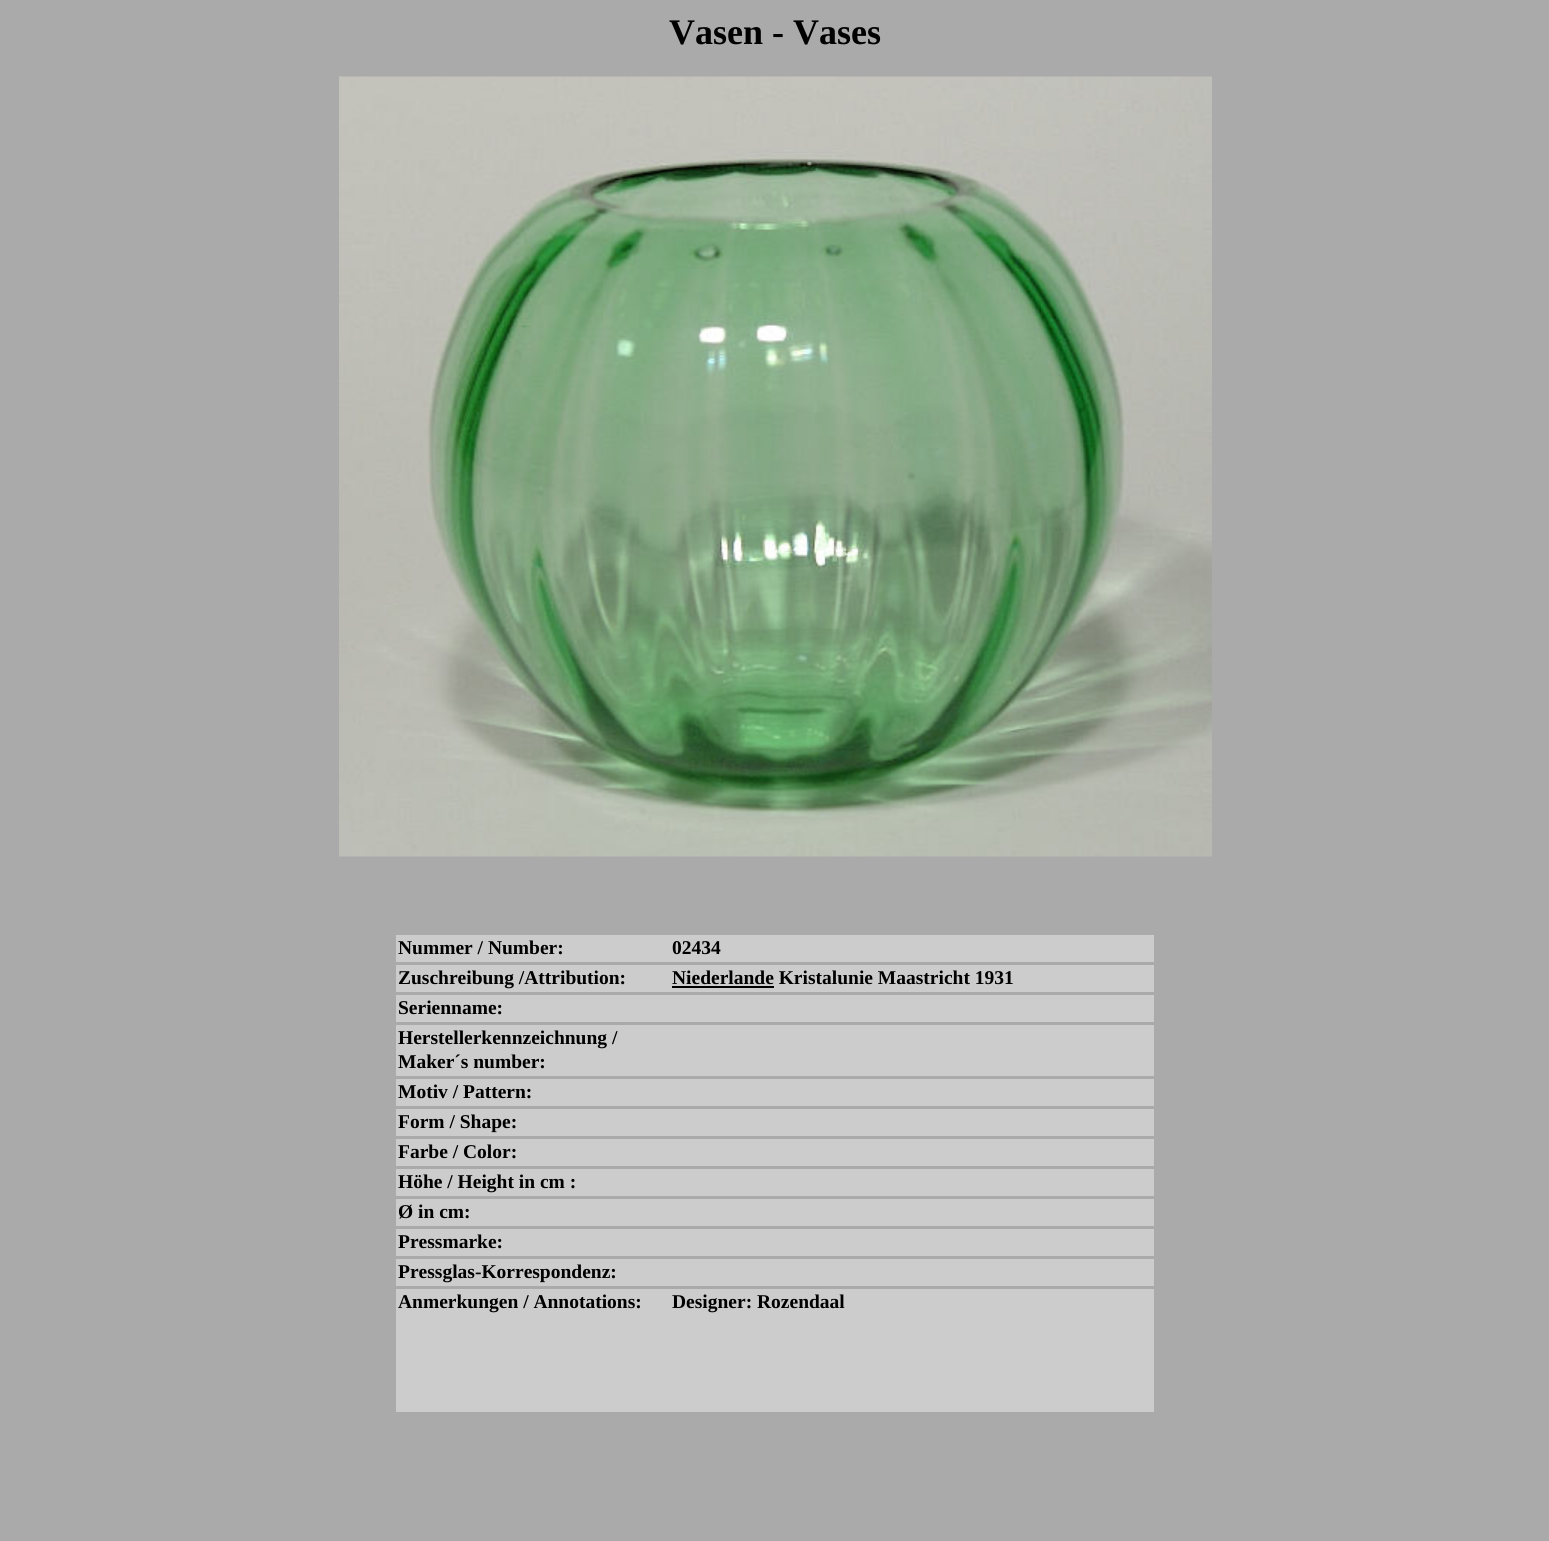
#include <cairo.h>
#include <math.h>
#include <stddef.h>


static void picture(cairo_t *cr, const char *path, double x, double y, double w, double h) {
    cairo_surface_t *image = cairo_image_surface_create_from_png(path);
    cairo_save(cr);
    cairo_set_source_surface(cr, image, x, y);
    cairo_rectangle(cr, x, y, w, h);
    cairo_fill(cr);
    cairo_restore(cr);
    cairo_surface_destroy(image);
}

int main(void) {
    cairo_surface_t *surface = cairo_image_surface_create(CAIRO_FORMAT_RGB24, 1549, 1541);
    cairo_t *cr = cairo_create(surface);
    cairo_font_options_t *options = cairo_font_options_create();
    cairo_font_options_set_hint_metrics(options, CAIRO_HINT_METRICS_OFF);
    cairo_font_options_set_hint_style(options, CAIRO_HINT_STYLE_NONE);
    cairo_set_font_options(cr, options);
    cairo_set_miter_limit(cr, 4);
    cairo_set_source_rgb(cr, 0.667, 0.667, 0.667);
    cairo_paint(cr);
    cairo_select_font_face(cr, "Liberation Serif", CAIRO_FONT_SLANT_NORMAL, CAIRO_FONT_WEIGHT_BOLD);
    cairo_set_font_size(cr, 36);
    cairo_set_source_rgb(cr, 0, 0, 0);
    cairo_move_to(cr, 669, 44);
    cairo_show_text(cr, "Vasen - Vases");
    picture(cr, "img1.png", 339, 76, 873, 781);
    cairo_set_source_rgb(cr, 0.8, 0.8, 0.8);
    cairo_rectangle(cr, 396, 935, 758, 27);
    cairo_fill(cr);
    cairo_set_font_size(cr, 19.5);
    cairo_set_source_rgb(cr, 0, 0, 0);
    cairo_move_to(cr, 398, 954);
    cairo_show_text(cr, "Nummer / Number:");
    cairo_move_to(cr, 672, 954);
    cairo_show_text(cr, "02434");
    cairo_set_source_rgb(cr, 0.8, 0.8, 0.8);
    cairo_rectangle(cr, 396, 965, 758, 27);
    cairo_fill(cr);
    cairo_set_source_rgb(cr, 0, 0, 0);
    cairo_move_to(cr, 398, 984);
    cairo_show_text(cr, "Zuschreibung /Attribution:");
    cairo_move_to(cr, 672, 984);
    cairo_show_text(cr, "Niederlande Kristalunie Maastricht 1931");
    cairo_rectangle(cr, 672, 986, 102, 2);
    cairo_fill(cr);
    cairo_set_source_rgb(cr, 0.8, 0.8, 0.8);
    cairo_rectangle(cr, 396, 995, 758, 27);
    cairo_fill(cr);
    cairo_set_source_rgb(cr, 0, 0, 0);
    cairo_move_to(cr, 398, 1014);
    cairo_show_text(cr, "Serienname:");
    cairo_set_source_rgb(cr, 0.8, 0.8, 0.8);
    cairo_rectangle(cr, 396, 1025, 758, 51);
    cairo_fill(cr);
    cairo_set_source_rgb(cr, 0, 0, 0);
    cairo_move_to(cr, 398, 1044);
    cairo_show_text(cr, "Herstellerkennzeichnung /");
    cairo_move_to(cr, 398, 1068);
    cairo_show_text(cr, "Maker´s number:");
    cairo_set_source_rgb(cr, 0.8, 0.8, 0.8);
    cairo_rectangle(cr, 396, 1079, 758, 27);
    cairo_fill(cr);
    cairo_set_source_rgb(cr, 0, 0, 0);
    cairo_move_to(cr, 398, 1098);
    cairo_show_text(cr, "Motiv / Pattern:");
    cairo_set_source_rgb(cr, 0.8, 0.8, 0.8);
    cairo_rectangle(cr, 396, 1109, 758, 27);
    cairo_fill(cr);
    cairo_set_source_rgb(cr, 0, 0, 0);
    cairo_move_to(cr, 398, 1128);
    cairo_show_text(cr, "Form / Shape:");
    cairo_set_source_rgb(cr, 0.8, 0.8, 0.8);
    cairo_rectangle(cr, 396, 1139, 758, 27);
    cairo_fill(cr);
    cairo_set_source_rgb(cr, 0, 0, 0);
    cairo_move_to(cr, 398, 1158);
    cairo_show_text(cr, "Farbe / Color:");
    cairo_set_source_rgb(cr, 0.8, 0.8, 0.8);
    cairo_rectangle(cr, 396, 1169, 758, 27);
    cairo_fill(cr);
    cairo_set_source_rgb(cr, 0, 0, 0);
    cairo_move_to(cr, 398, 1188);
    cairo_show_text(cr, "Höhe / Height in cm :");
    cairo_set_source_rgb(cr, 0.8, 0.8, 0.8);
    cairo_rectangle(cr, 396, 1199, 758, 27);
    cairo_fill(cr);
    cairo_set_source_rgb(cr, 0, 0, 0);
    cairo_move_to(cr, 398, 1218);
    cairo_show_text(cr, "Ø in cm:");
    cairo_set_source_rgb(cr, 0.8, 0.8, 0.8);
    cairo_rectangle(cr, 396, 1229, 758, 27);
    cairo_fill(cr);
    cairo_set_source_rgb(cr, 0, 0, 0);
    cairo_move_to(cr, 398, 1248);
    cairo_show_text(cr, "Pressmarke:");
    cairo_set_source_rgb(cr, 0.8, 0.8, 0.8);
    cairo_rectangle(cr, 396, 1259, 758, 27);
    cairo_fill(cr);
    cairo_set_source_rgb(cr, 0, 0, 0);
    cairo_move_to(cr, 398, 1278);
    cairo_show_text(cr, "Pressglas-Korrespondenz:");
    cairo_set_source_rgb(cr, 0.8, 0.8, 0.8);
    cairo_rectangle(cr, 396, 1289, 758, 123);
    cairo_fill(cr);
    cairo_set_source_rgb(cr, 0, 0, 0);
    cairo_move_to(cr, 398, 1308);
    cairo_show_text(cr, "Anmerkungen / Annotations:");
    cairo_move_to(cr, 672, 1308);
    cairo_show_text(cr, "Designer: Rozendaal");
    cairo_surface_write_to_png(surface, "page.png");
    cairo_font_options_destroy(options);
    cairo_destroy(cr);
    cairo_surface_destroy(surface);
    return 0;
}
